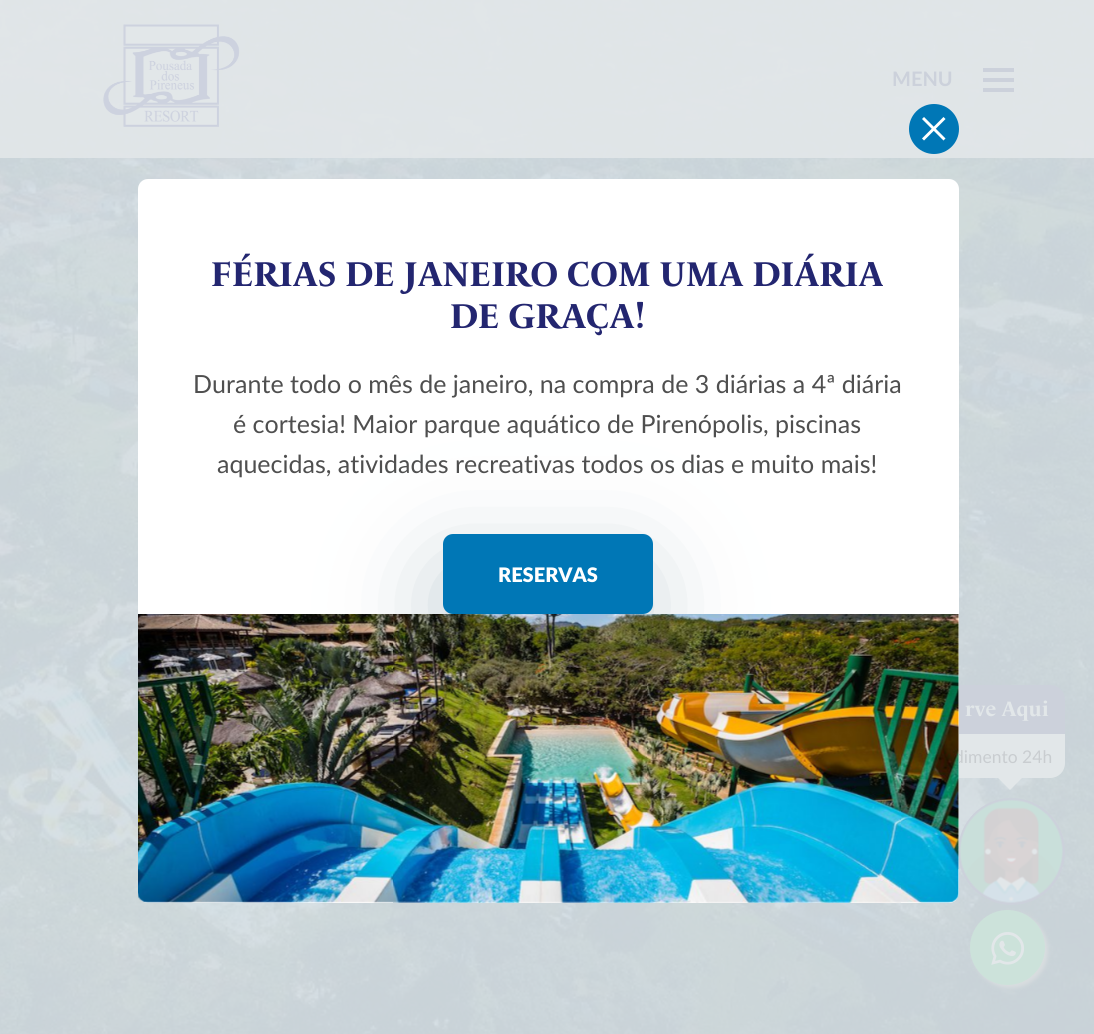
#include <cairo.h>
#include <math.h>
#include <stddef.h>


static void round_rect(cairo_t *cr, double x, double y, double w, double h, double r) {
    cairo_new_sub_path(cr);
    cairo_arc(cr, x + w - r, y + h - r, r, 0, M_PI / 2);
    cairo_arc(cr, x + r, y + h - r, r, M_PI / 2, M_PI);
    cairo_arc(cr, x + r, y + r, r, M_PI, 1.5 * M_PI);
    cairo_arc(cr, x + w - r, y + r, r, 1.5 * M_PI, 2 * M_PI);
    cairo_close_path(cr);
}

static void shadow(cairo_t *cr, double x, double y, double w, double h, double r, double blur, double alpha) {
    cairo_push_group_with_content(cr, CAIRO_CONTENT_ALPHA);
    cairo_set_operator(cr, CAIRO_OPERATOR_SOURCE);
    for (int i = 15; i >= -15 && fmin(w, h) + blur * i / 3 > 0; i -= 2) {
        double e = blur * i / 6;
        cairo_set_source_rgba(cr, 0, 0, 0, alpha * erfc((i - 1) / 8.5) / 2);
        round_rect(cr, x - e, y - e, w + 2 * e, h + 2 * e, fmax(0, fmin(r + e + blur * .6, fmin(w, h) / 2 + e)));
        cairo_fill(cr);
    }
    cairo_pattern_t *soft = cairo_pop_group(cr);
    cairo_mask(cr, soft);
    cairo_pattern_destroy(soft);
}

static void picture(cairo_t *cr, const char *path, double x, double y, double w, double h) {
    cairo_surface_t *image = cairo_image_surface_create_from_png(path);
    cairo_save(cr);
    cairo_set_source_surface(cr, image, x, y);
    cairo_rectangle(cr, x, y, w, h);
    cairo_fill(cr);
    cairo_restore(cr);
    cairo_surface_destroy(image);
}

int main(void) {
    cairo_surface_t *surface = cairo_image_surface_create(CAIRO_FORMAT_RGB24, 1094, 1034);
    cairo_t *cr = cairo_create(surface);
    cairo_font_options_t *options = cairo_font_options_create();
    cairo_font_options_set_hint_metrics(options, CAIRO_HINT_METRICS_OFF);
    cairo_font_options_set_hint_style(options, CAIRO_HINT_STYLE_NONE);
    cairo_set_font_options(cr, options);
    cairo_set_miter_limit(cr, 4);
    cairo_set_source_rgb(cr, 1, 1, 1);
    cairo_paint(cr);
    picture(cr, "img1.png", 0, 0, 1094, 1034);
    cairo_set_source_rgba(cr, 0.886, 0.906, 0.914, 0.9);
    cairo_rectangle(cr, 0, 0, 1094, 158);
    cairo_fill(cr);
    picture(cr, "img2.png", 103, 24, 137, 103);
    cairo_select_font_face(cr, "Lato", CAIRO_FONT_SLANT_NORMAL, CAIRO_FONT_WEIGHT_BOLD);
    cairo_set_font_size(cr, 20);
    cairo_set_source_rgb(cr, 0.8, 0.82, 0.859);
    cairo_move_to(cr, 892, 86);
    cairo_show_text(cr, "MENU");
    cairo_rectangle(cr, 983, 68, 31, 4);
    cairo_fill(cr);
    cairo_rectangle(cr, 983, 78, 31, 4);
    cairo_fill(cr);
    cairo_rectangle(cr, 983, 88, 31, 4);
    cairo_fill(cr);
    cairo_set_source_rgb(cr, 0, 0.467, 0.714);
    cairo_arc(cr, 934, 129, 25, 0, 2 * M_PI);
    cairo_fill(cr);
    cairo_new_path(cr);
    cairo_move_to(cr, 923, 139.5);
    cairo_line_to(cr, 944.5, 118);
    cairo_move_to(cr, 944.5, 139.5);
    cairo_line_to(cr, 923, 118);
    cairo_set_source_rgb(cr, 1, 1, 1);
    cairo_set_line_width(cr, 2.9);
    cairo_stroke(cr);
    cairo_set_source_rgb(cr, 0.8, 0.82, 0.859);
    cairo_new_path(cr);
    cairo_move_to(cr, 920, 685);
    cairo_line_to(cr, 1050, 685);
    cairo_curve_to(cr, 1058.5, 685, 1065, 691.5, 1065, 700);
    cairo_line_to(cr, 1065, 734);
    cairo_line_to(cr, 905, 734);
    cairo_line_to(cr, 905, 700);
    cairo_curve_to(cr, 905, 691.5, 911.5, 685, 920, 685);
    cairo_close_path(cr);
    cairo_fill(cr);
    cairo_set_source_rgb(cr, 0.886, 0.906, 0.914);
    cairo_new_path(cr);
    cairo_move_to(cr, 905, 734);
    cairo_line_to(cr, 1065, 734);
    cairo_line_to(cr, 1065, 763);
    cairo_curve_to(cr, 1065, 771.5, 1058.5, 778, 1050, 778);
    cairo_line_to(cr, 920, 778);
    cairo_curve_to(cr, 911.5, 778, 905, 771.5, 905, 763);
    cairo_close_path(cr);
    cairo_fill(cr);
    cairo_select_font_face(cr, "Lato", CAIRO_FONT_SLANT_NORMAL, CAIRO_FONT_WEIGHT_NORMAL);
    cairo_set_font_size(cr, 17.5);
    cairo_set_source_rgb(cr, 0.788, 0.804, 0.816);
    cairo_move_to(cr, 954, 763);
    cairo_show_text(cr, "dimento 24h");
    cairo_new_path(cr);
    cairo_arc(cr, 1011.5, 851.5, 52, 0, 2 * M_PI);
    cairo_set_source_rgb(cr, 0.8, 0.82, 0.859);
    cairo_set_line_width(cr, 3);
    cairo_stroke(cr);
    cairo_set_source_rgb(cr, 1, 1, 1);
    round_rect(cr, 138, 179, 821, 724, 10);
    cairo_fill(cr);
    cairo_select_font_face(cr, "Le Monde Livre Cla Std", CAIRO_FONT_SLANT_NORMAL, CAIRO_FONT_WEIGHT_BOLD);
    cairo_set_font_size(cr, 35);
    cairo_set_source_rgb(cr, 0.137, 0.149, 0.439);
    cairo_move_to(cr, 211, 286);
    cairo_show_text(cr, "FÉRIAS DE JANEIRO COM UMA DIÁRIA");
    cairo_move_to(cr, 450, 328);
    cairo_show_text(cr, "DE GRAÇA!");
    cairo_select_font_face(cr, "Lato", CAIRO_FONT_SLANT_NORMAL, CAIRO_FONT_WEIGHT_NORMAL);
    cairo_set_font_size(cr, 25);
    cairo_set_source_rgb(cr, 0.31, 0.31, 0.31);
    cairo_move_to(cr, 193, 393);
    cairo_show_text(cr, "Durante todo o mês de janeiro, na compra de 3 diárias a 4ª diária");
    cairo_move_to(cr, 233, 433);
    cairo_show_text(cr, "é cortesia! Maior parque aquático de Pirenópolis, piscinas");
    cairo_move_to(cr, 217, 473);
    cairo_show_text(cr, "aquecidas, atividades recreativas todos os dias e muito mais!");
    cairo_set_source_rgb(cr, 0.459, 0.573, 0.62);
    shadow(cr, 436, 565, 210, 80, 10, 50, 0.4);
    cairo_set_source_rgb(cr, 0, 0.467, 0.714);
    round_rect(cr, 444.5, 535.5, 207, 77, 8.5);
    cairo_fill_preserve(cr);
    cairo_stroke(cr);
    cairo_select_font_face(cr, "Lato Black", CAIRO_FONT_SLANT_NORMAL, CAIRO_FONT_WEIGHT_NORMAL);
    cairo_set_font_size(cr, 20);
    cairo_set_source_rgb(cr, 1, 1, 1);
    cairo_move_to(cr, 498, 582);
    cairo_show_text(cr, "RESERVAS");
    picture(cr, "img3.png", 138, 614, 821, 289);
    cairo_select_font_face(cr, "Le Monde Livre Cla Std", CAIRO_FONT_SLANT_NORMAL, CAIRO_FONT_WEIGHT_BOLD);
    cairo_set_font_size(cr, 21);
    cairo_set_source_rgb(cr, 0.886, 0.906, 0.914);
    cairo_move_to(cr, 965, 716);
    cairo_show_text(cr, "rve Aqui");
    cairo_new_path(cr);
    cairo_move_to(cr, 997.5, 777.5);
    cairo_line_to(cr, 1022.5, 777.5);
    cairo_line_to(cr, 1010, 790);
    cairo_close_path(cr);
    cairo_fill(cr);
    picture(cr, "img4.png", 959, 799, 104, 104);
    cairo_set_source_rgb(cr, 0.847, 0.867, 0.875);
    shadow(cr, 973, 913, 75, 75, 37.5, 2, 1);
    cairo_set_source_rgb(cr, 0.8, 0.886, 0.855);
    cairo_arc(cr, 1007.5, 947.5, 37.5, 0, 2 * M_PI);
    cairo_fill(cr);
    picture(cr, "img5.png", 991, 932, 34, 33);
    cairo_surface_write_to_png(surface, "page.png");
    cairo_font_options_destroy(options);
    cairo_destroy(cr);
    cairo_surface_destroy(surface);
    return 0;
}
